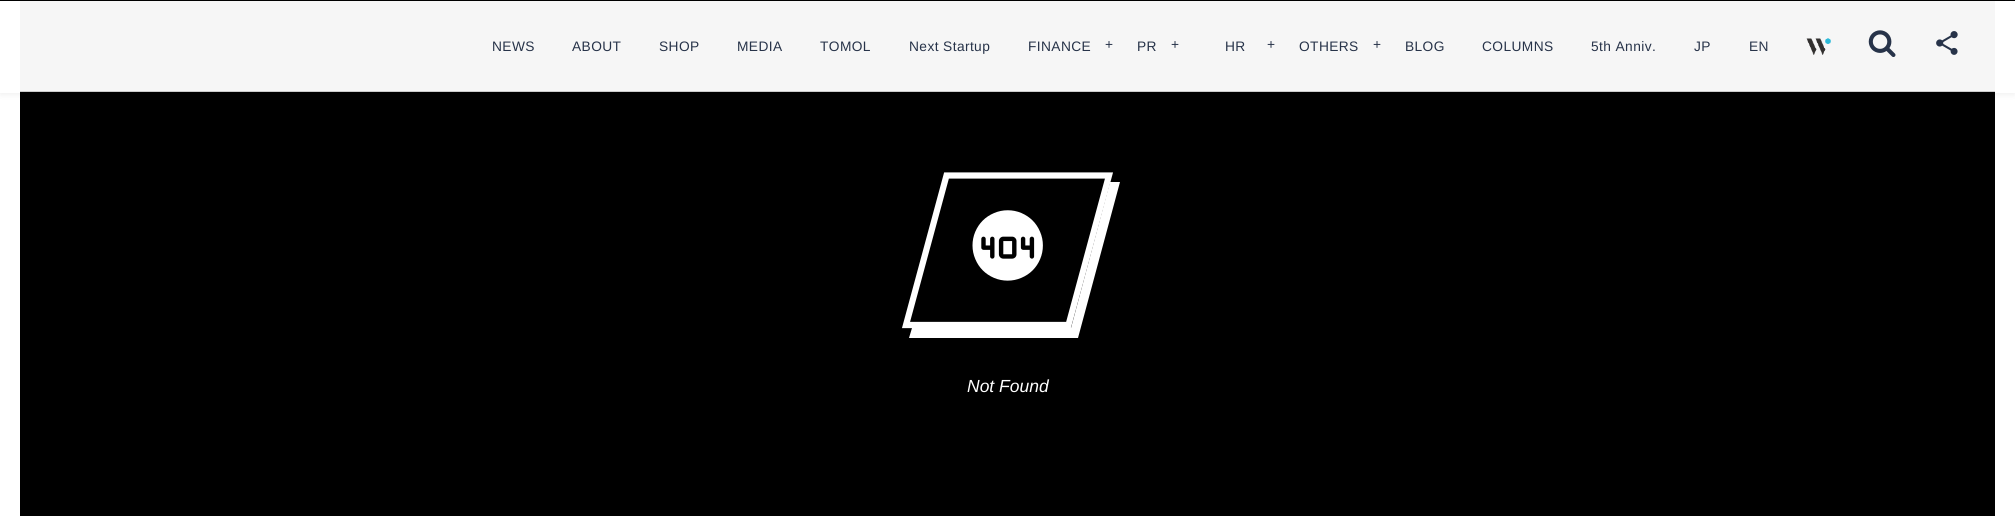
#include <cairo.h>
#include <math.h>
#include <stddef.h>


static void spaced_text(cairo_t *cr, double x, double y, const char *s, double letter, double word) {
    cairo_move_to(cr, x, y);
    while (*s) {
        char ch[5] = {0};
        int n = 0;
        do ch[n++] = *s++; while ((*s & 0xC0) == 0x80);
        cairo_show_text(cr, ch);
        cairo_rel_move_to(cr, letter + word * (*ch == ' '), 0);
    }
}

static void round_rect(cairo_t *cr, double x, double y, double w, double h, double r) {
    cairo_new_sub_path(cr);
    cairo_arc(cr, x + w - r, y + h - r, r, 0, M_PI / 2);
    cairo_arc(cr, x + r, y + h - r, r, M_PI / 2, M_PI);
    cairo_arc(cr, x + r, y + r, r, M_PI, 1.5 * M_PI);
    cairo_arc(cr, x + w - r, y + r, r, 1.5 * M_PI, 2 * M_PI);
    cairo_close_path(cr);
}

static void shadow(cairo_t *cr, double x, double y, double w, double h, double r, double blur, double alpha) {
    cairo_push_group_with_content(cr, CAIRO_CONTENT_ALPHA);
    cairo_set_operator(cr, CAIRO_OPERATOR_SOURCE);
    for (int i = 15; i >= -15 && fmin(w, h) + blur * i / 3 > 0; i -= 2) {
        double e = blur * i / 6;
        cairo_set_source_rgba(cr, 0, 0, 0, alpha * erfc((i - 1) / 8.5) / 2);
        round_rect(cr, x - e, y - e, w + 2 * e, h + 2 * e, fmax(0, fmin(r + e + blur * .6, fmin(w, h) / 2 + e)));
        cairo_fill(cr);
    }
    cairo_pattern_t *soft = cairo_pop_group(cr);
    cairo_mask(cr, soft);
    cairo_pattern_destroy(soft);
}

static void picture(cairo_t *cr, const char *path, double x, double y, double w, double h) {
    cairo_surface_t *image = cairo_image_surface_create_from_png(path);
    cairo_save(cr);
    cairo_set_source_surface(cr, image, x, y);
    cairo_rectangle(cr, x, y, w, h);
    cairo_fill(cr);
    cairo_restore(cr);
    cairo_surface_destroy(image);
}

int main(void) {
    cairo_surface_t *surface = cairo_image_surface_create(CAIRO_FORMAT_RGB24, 2015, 531);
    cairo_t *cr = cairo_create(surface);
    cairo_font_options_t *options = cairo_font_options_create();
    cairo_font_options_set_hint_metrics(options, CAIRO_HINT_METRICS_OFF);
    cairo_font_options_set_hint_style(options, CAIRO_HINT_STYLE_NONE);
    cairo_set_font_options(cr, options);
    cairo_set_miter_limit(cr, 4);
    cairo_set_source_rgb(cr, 1, 1, 1);
    cairo_paint(cr);
    cairo_set_source_rgb(cr, 0, 0, 0);
    cairo_rectangle(cr, 20, 92, 1975, 424);
    cairo_fill(cr);
    cairo_set_source_rgb(cr, 0.961, 0.961, 0.961);
    cairo_rectangle(cr, 20, 1, 1975, 90);
    cairo_fill(cr);
    cairo_set_source_rgb(cr, 0.8, 0.8, 0.8);
    cairo_rectangle(cr, 20, 91, 1975, 1);
    cairo_fill(cr);
    cairo_save(cr);
    cairo_set_fill_rule(cr, CAIRO_FILL_RULE_EVEN_ODD);
    cairo_new_path(cr);
    cairo_move_to(cr, 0, 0);
    cairo_line_to(cr, 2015, 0);
    cairo_line_to(cr, 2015, 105);
    cairo_line_to(cr, 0, 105);
    cairo_close_path(cr);
    cairo_move_to(cr, 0, 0);
    cairo_line_to(cr, 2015, 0);
    cairo_line_to(cr, 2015, 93);
    cairo_line_to(cr, 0, 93);
    cairo_close_path(cr);
    cairo_clip(cr);
    cairo_set_source_rgb(cr, 0, 0, 0);
    shadow(cr, 0, 3, 2015, 92, 0, 3, 0.06);
    cairo_restore(cr);
    cairo_set_source_rgb(cr, 0, 0, 0);
    cairo_rectangle(cr, 0, 0, 2015, 1);
    cairo_fill(cr);
    cairo_select_font_face(cr, "Liberation Sans", CAIRO_FONT_SLANT_NORMAL, CAIRO_FONT_WEIGHT_NORMAL);
    cairo_set_font_size(cr, 13.75);
    cairo_set_source_rgb(cr, 0.153, 0.2, 0.286);
    spaced_text(cr, 492, 51, "NEWS", 0.4, 0);
    spaced_text(cr, 572, 51, "ABOUT", 0.4, 0);
    spaced_text(cr, 659, 51, "SHOP", 0.4, 0);
    spaced_text(cr, 737, 51, "MEDIA", 0.4, 0);
    spaced_text(cr, 820, 51, "TOMOL", 0.4, 0);
    spaced_text(cr, 909, 51, "Next Startup", 0.4, 0);
    spaced_text(cr, 1028, 51, "FINANCE", 0.4, 0);
    spaced_text(cr, 1105, 49, "+", 0.4, 0);
    spaced_text(cr, 1137, 51, "PR", 0.4, 0);
    spaced_text(cr, 1171, 49, "+", 0.4, 0);
    spaced_text(cr, 1225, 51, "HR", 0.4, 0);
    spaced_text(cr, 1267, 49, "+", 0.4, 0);
    spaced_text(cr, 1299, 51, "OTHERS", 0.4, 0);
    spaced_text(cr, 1373, 49, "+", 0.4, 0);
    spaced_text(cr, 1405, 51, "BLOG", 0.4, 0);
    spaced_text(cr, 1482, 51, "COLUMNS", 0.4, 0);
    spaced_text(cr, 1591, 51, "5th Anniv.", 0.4, 0);
    spaced_text(cr, 1694, 51, "JP", 0.4, 0);
    spaced_text(cr, 1749, 51, "EN", 0.4, 0);
    picture(cr, "img1.png", 1806, 38, 25, 17);
    picture(cr, "img2.png", 1868, 30, 28, 27);
    picture(cr, "img3.png", 1936, 31, 22, 24);
    cairo_set_source_rgb(cr, 1, 1, 1);
    cairo_new_path(cr);
    cairo_move_to(cr, 912, 328);
    cairo_line_to(cr, 909, 338);
    cairo_line_to(cr, 1078, 338);
    cairo_line_to(cr, 1120, 182);
    cairo_line_to(cr, 1110, 182);
    cairo_line_to(cr, 1071, 328);
    cairo_close_path(cr);
    cairo_fill(cr);
    cairo_new_path(cr);
    cairo_move_to(cr, 946.5, 175.5);
    cairo_line_to(cr, 1109, 175.5);
    cairo_line_to(cr, 1068.5, 325);
    cairo_line_to(cr, 906, 325);
    cairo_close_path(cr);
    cairo_set_line_width(cr, 6.2);
    cairo_stroke(cr);
    picture(cr, "img4.png", 972, 210, 71, 71);
    cairo_select_font_face(cr, "Liberation Sans", CAIRO_FONT_SLANT_ITALIC, CAIRO_FONT_WEIGHT_NORMAL);
    cairo_set_font_size(cr, 17.5);
    cairo_move_to(cr, 967, 392);
    cairo_show_text(cr, "Not Found");
    cairo_surface_write_to_png(surface, "page.png");
    cairo_font_options_destroy(options);
    cairo_destroy(cr);
    cairo_surface_destroy(surface);
    return 0;
}
